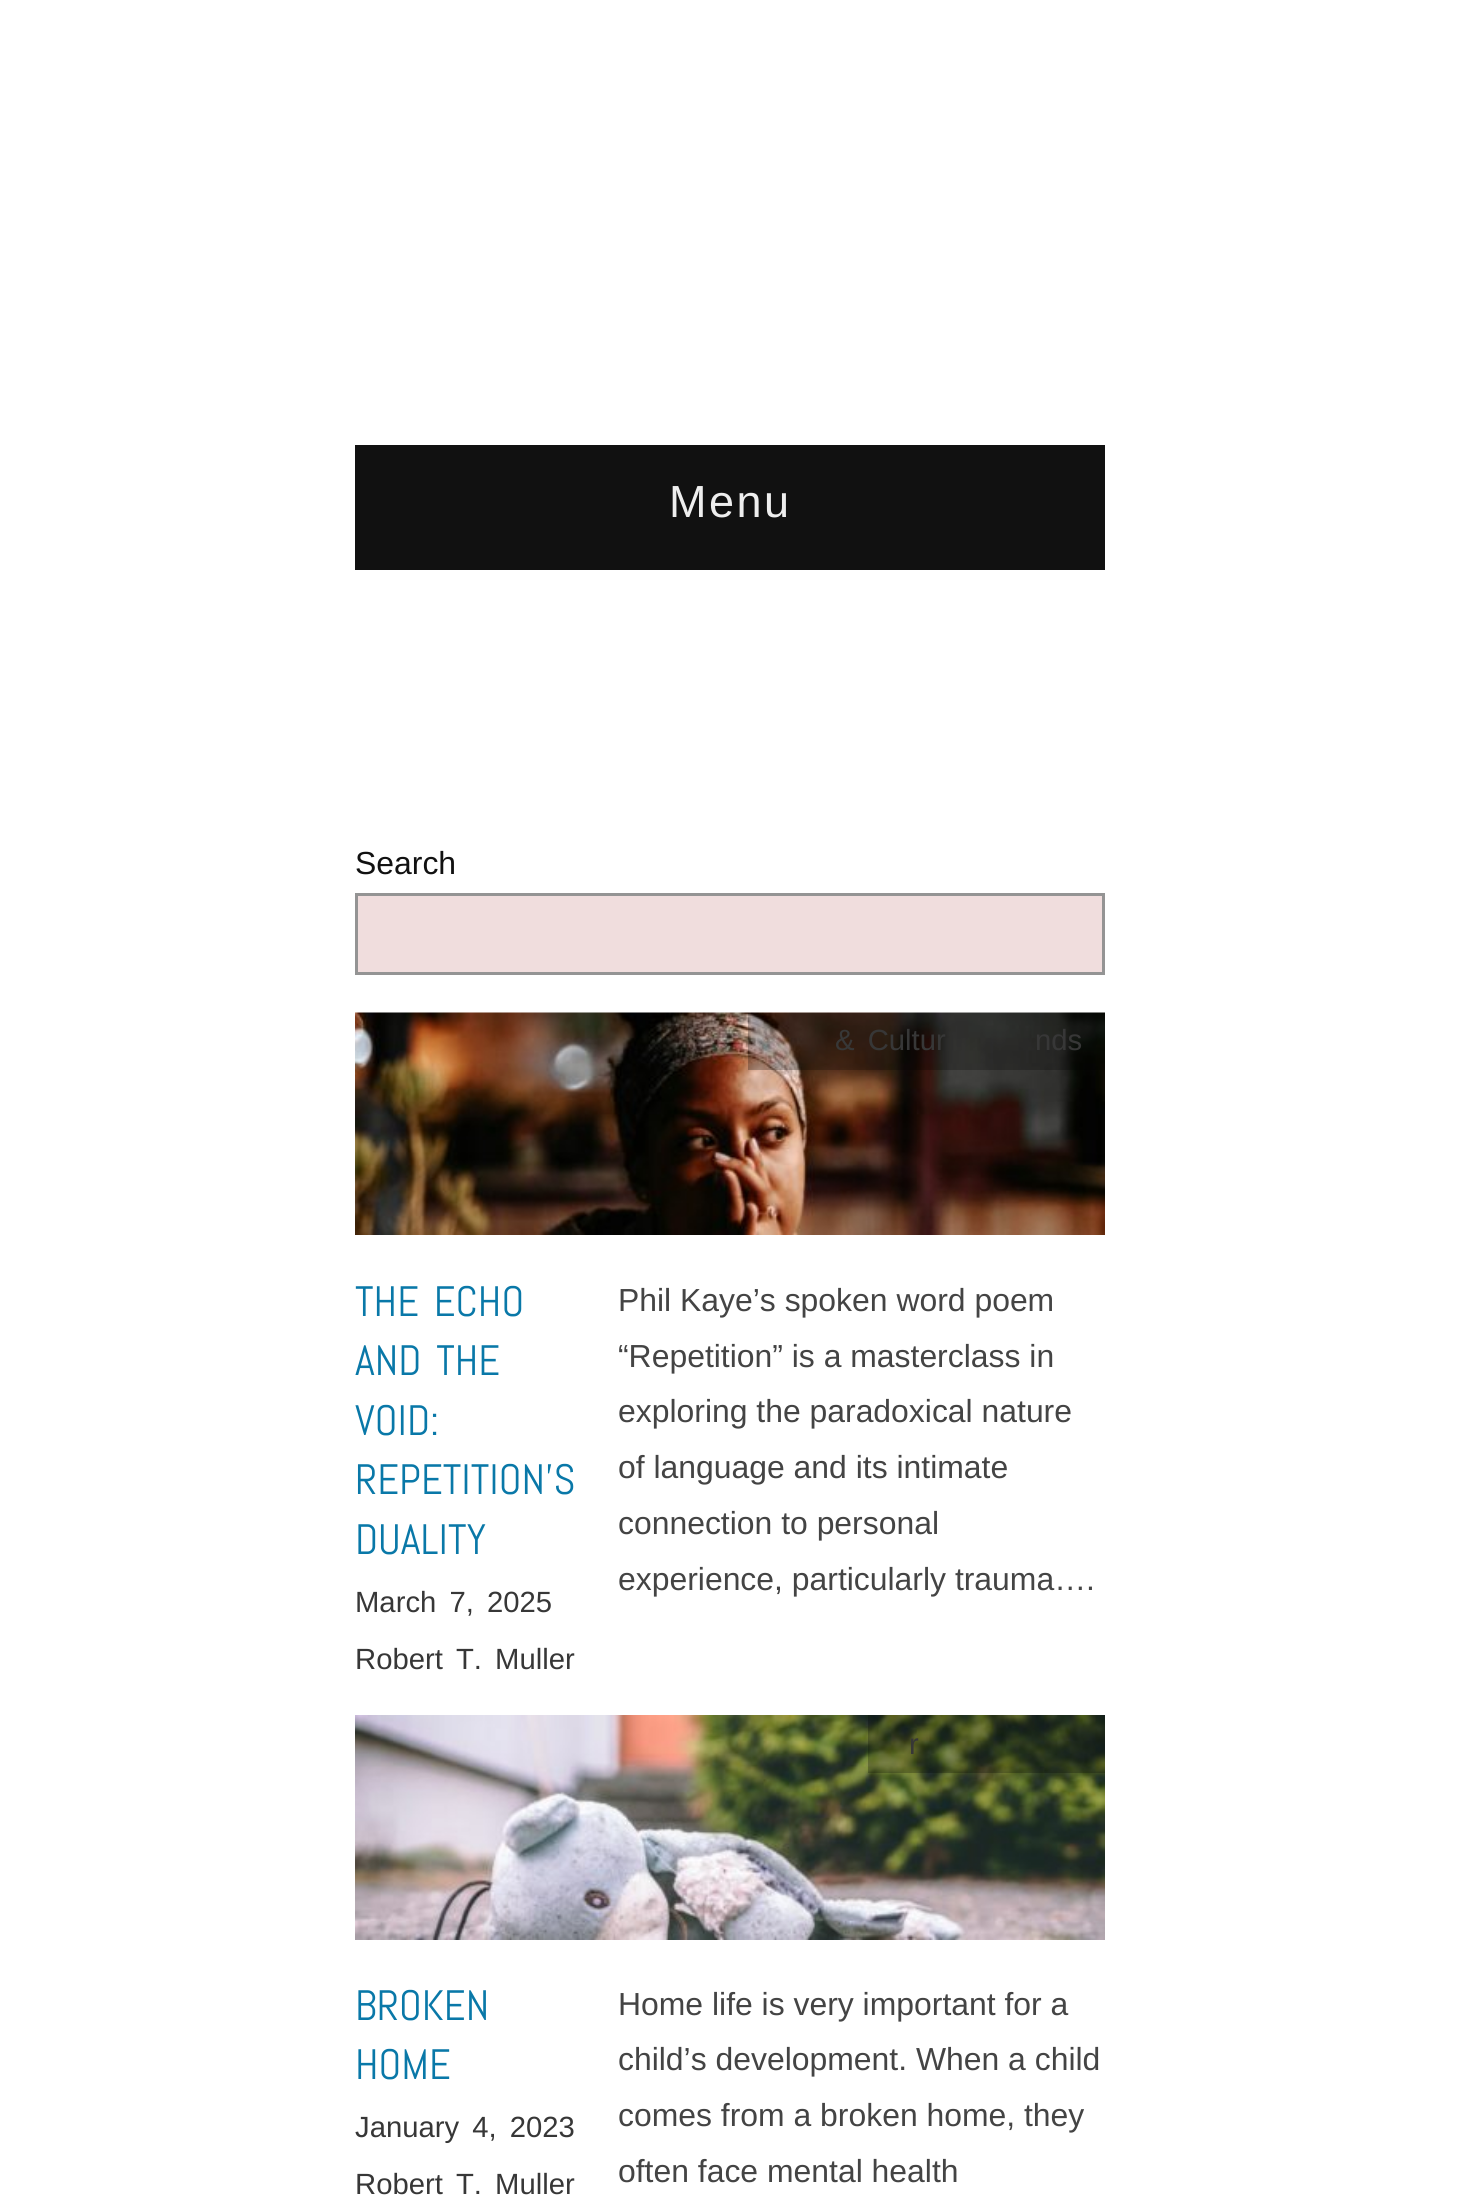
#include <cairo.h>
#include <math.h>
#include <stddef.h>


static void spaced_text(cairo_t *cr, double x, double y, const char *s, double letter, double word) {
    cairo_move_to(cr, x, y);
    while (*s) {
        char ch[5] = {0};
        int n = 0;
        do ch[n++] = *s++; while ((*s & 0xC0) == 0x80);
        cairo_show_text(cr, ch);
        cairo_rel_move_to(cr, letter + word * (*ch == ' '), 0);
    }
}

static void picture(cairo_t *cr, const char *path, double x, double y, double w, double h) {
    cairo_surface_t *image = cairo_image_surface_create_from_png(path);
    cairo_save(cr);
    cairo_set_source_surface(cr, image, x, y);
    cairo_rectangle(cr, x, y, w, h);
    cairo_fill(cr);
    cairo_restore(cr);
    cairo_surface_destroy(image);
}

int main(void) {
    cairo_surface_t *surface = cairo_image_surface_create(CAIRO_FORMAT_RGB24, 1458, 2196);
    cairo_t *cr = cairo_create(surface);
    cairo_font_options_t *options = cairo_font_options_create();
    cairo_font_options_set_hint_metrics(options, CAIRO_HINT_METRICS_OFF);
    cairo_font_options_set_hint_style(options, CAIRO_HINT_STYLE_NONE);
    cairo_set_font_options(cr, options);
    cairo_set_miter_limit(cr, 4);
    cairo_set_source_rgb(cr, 1, 1, 1);
    cairo_paint(cr);
    cairo_set_source_rgb(cr, 0.067, 0.067, 0.067);
    cairo_rectangle(cr, 355, 445, 750, 125);
    cairo_fill(cr);
    cairo_select_font_face(cr, "Liberation Sans", CAIRO_FONT_SLANT_NORMAL, CAIRO_FONT_WEIGHT_NORMAL);
    cairo_set_font_size(cr, 45);
    cairo_set_source_rgb(cr, 0.933, 0.933, 0.933);
    spaced_text(cr, 669, 517, "Menu", 2.5, 0);
    cairo_set_font_size(cr, 31.9);
    cairo_set_source_rgb(cr, 0.067, 0.067, 0.067);
    cairo_move_to(cr, 355, 874);
    cairo_show_text(cr, "Search");
    cairo_set_source_rgb(cr, 0.941, 0.867, 0.867);
    cairo_rectangle(cr, 356.5, 894.5, 747, 79);
    cairo_fill_preserve(cr);
    cairo_set_source_rgb(cr, 0.58, 0.58, 0.58);
    cairo_set_line_width(cr, 3);
    cairo_stroke(cr);
    picture(cr, "img1.png", 355, 1012, 750, 223);
    cairo_set_source_rgba(cr, 0, 0, 0, 0.25);
    cairo_rectangle(cr, 748, 1013, 357, 57);
    cairo_fill(cr);
    cairo_set_font_size(cr, 29.25);
    cairo_set_source_rgb(cr, 0.216, 0.216, 0.216);
    spaced_text(cr, 835, 1050, "& Cultur", 0, 5);
    cairo_move_to(cr, 1035, 1050);
    cairo_show_text(cr, "nds");
    cairo_select_font_face(cr, "Abel", CAIRO_FONT_SLANT_NORMAL, CAIRO_FONT_WEIGHT_NORMAL);
    cairo_set_font_size(cr, 42.5);
    cairo_set_source_rgb(cr, 0.039, 0.471, 0.659);
    spaced_text(cr, 355, 1316, "THE ECHO", 0, 5);
    spaced_text(cr, 355, 1375, "AND THE", 0, 5);
    cairo_move_to(cr, 355, 1435);
    cairo_show_text(cr, "VOID:");
    cairo_move_to(cr, 355, 1494);
    cairo_show_text(cr, "REPETITION’S");
    cairo_move_to(cr, 355, 1554);
    cairo_show_text(cr, "DUALITY");
    cairo_select_font_face(cr, "Liberation Sans", CAIRO_FONT_SLANT_NORMAL, CAIRO_FONT_WEIGHT_NORMAL);
    cairo_set_font_size(cr, 29.25);
    cairo_set_source_rgb(cr, 0.216, 0.216, 0.216);
    spaced_text(cr, 355, 1612, "March 7, 2025", 0, 5);
    spaced_text(cr, 355, 1669, "Robert T. Muller", 0, 5);
    cairo_set_font_size(cr, 31.9);
    cairo_set_source_rgb(cr, 0.267, 0.267, 0.267);
    cairo_move_to(cr, 618, 1311);
    cairo_show_text(cr, "Phil Kaye’s spoken word poem");
    cairo_move_to(cr, 618, 1367);
    cairo_show_text(cr, "“Repetition” is a masterclass in");
    cairo_move_to(cr, 618, 1422);
    cairo_show_text(cr, "exploring the paradoxical nature");
    cairo_move_to(cr, 618, 1478);
    cairo_show_text(cr, "of language and its intimate");
    cairo_move_to(cr, 618, 1534);
    cairo_show_text(cr, "connection to personal");
    cairo_move_to(cr, 618, 1590);
    cairo_show_text(cr, "experience, particularly trauma….");
    picture(cr, "img2.png", 355, 1715, 750, 225);
    cairo_set_source_rgba(cr, 0, 0, 0, 0.25);
    cairo_rectangle(cr, 868, 1715, 237, 58);
    cairo_fill(cr);
    cairo_set_font_size(cr, 29.25);
    cairo_set_source_rgb(cr, 0.216, 0.216, 0.216);
    spaced_text(cr, 909, 1754, "r", 0, 5);
    cairo_select_font_face(cr, "Abel", CAIRO_FONT_SLANT_NORMAL, CAIRO_FONT_WEIGHT_NORMAL);
    cairo_set_font_size(cr, 42.5);
    cairo_set_source_rgb(cr, 0.039, 0.471, 0.659);
    cairo_move_to(cr, 355, 2020);
    cairo_show_text(cr, "BROKEN");
    cairo_move_to(cr, 355, 2079);
    cairo_show_text(cr, "HOME");
    cairo_select_font_face(cr, "Liberation Sans", CAIRO_FONT_SLANT_NORMAL, CAIRO_FONT_WEIGHT_NORMAL);
    cairo_set_font_size(cr, 29.25);
    cairo_set_source_rgb(cr, 0.216, 0.216, 0.216);
    spaced_text(cr, 355, 2137, "January 4, 2023", 0, 5);
    spaced_text(cr, 355, 2194, "Robert T. Muller", 0, 5);
    cairo_set_font_size(cr, 31.9);
    cairo_set_source_rgb(cr, 0.267, 0.267, 0.267);
    cairo_move_to(cr, 618, 2015);
    cairo_show_text(cr, "Home life is very important for a");
    cairo_move_to(cr, 618, 2070);
    cairo_show_text(cr, "child’s development. When a child");
    cairo_move_to(cr, 618, 2126);
    cairo_show_text(cr, "comes from a broken home, they");
    cairo_move_to(cr, 618, 2182);
    cairo_show_text(cr, "often face mental health");
    cairo_surface_write_to_png(surface, "page.png");
    cairo_font_options_destroy(options);
    cairo_destroy(cr);
    cairo_surface_destroy(surface);
    return 0;
}
